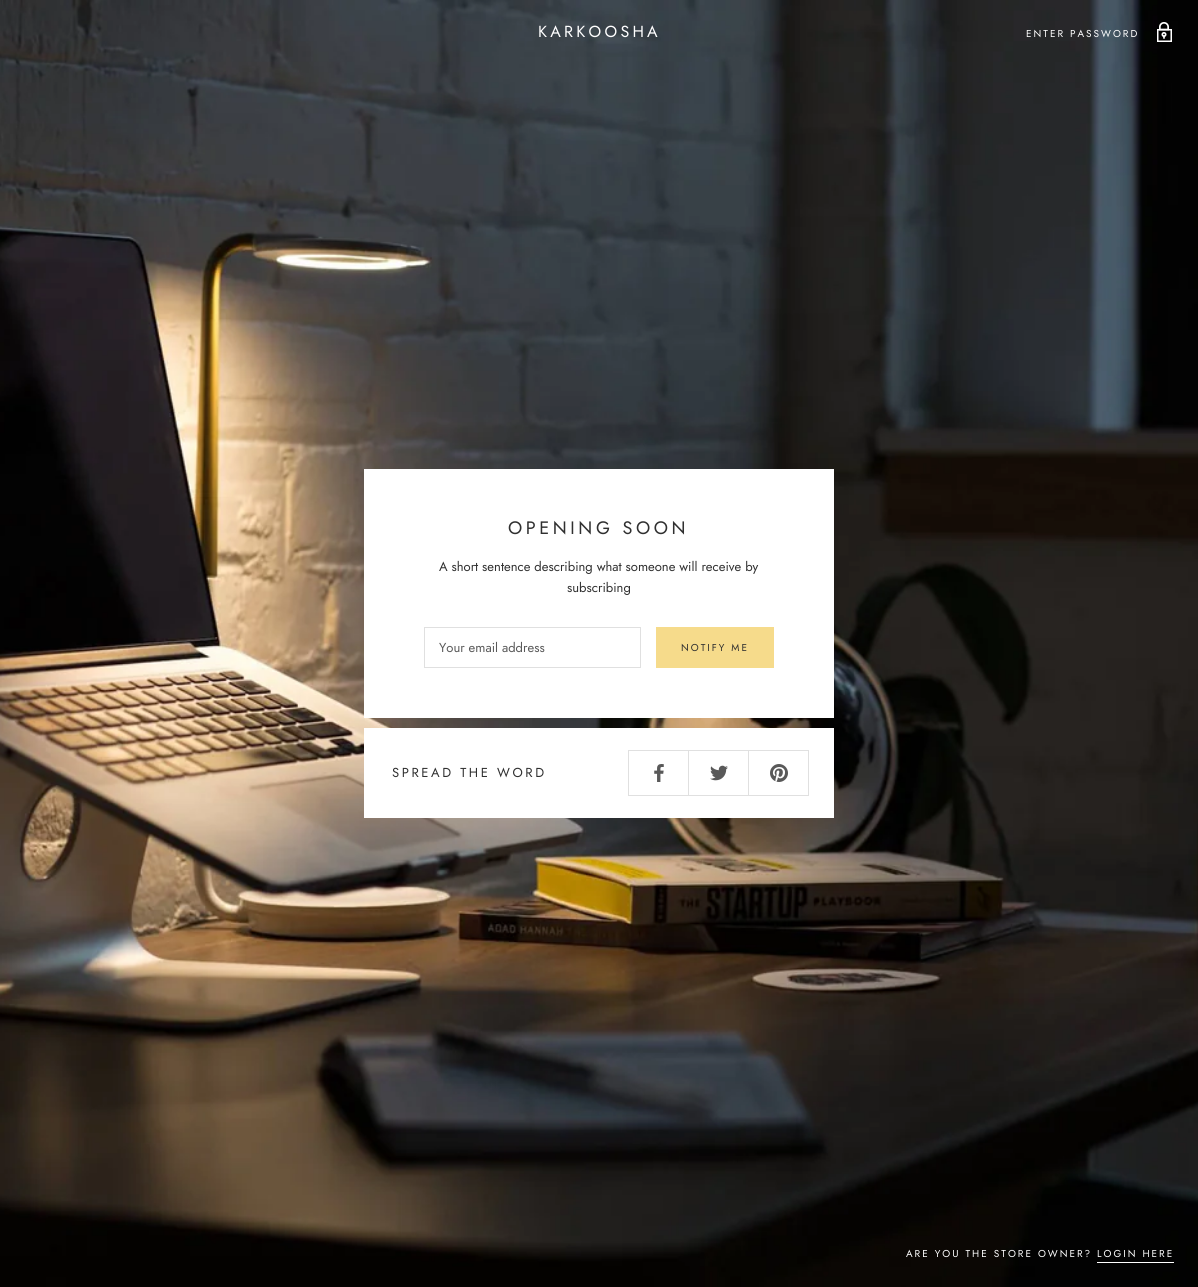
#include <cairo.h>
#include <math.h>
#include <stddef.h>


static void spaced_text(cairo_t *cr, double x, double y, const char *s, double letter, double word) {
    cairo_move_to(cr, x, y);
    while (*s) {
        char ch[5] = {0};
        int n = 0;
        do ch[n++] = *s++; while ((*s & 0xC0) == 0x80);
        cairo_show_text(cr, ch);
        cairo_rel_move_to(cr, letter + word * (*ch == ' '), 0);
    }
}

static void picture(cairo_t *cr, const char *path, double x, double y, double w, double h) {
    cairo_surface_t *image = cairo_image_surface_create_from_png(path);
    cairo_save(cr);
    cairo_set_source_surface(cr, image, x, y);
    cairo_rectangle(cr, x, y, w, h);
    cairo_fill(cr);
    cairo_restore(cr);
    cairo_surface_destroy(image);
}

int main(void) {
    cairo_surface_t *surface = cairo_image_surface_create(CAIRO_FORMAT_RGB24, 1198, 1287);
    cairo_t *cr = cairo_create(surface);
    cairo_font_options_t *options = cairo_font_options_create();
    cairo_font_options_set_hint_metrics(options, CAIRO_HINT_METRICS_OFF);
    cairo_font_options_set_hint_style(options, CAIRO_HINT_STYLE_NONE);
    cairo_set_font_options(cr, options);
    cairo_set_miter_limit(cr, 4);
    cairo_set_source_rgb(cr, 1, 1, 1);
    cairo_paint(cr);
    picture(cr, "img1.png", 0, 0, 1198, 1287);
    cairo_select_font_face(cr, "Jost", CAIRO_FONT_SLANT_NORMAL, CAIRO_FONT_WEIGHT_NORMAL);
    cairo_set_font_size(cr, 16);
    cairo_set_source_rgb(cr, 1, 1, 1);
    spaced_text(cr, 538, 37, "KARKOOSHA", 3.25, 0);
    cairo_set_font_size(cr, 10);
    spaced_text(cr, 1026, 37, "ENTER PASSWORD", 2, 0);
    picture(cr, "img2.png", 1157, 22, 15, 20);
    cairo_rectangle(cr, 364, 469, 470, 249);
    cairo_fill(cr);
    cairo_set_font_size(cr, 18);
    cairo_set_source_rgb(cr, 0.188, 0.188, 0.188);
    spaced_text(cr, 508, 534, "OPENING SOON", 3.6, 0);
    cairo_set_font_size(cr, 13);
    cairo_move_to(cr, 439, 571);
    cairo_show_text(cr, "A short sentence describing what someone will receive by");
    cairo_move_to(cr, 567, 592);
    cairo_show_text(cr, "subscribing");
    cairo_rectangle(cr, 424.5, 627.5, 216, 40);
    cairo_set_source_rgb(cr, 0.878, 0.878, 0.878);
    cairo_set_line_width(cr, 1);
    cairo_stroke(cr);
    cairo_set_source_rgb(cr, 0.349, 0.349, 0.349);
    cairo_move_to(cr, 439, 652);
    cairo_show_text(cr, "Your email address");
    cairo_rectangle(cr, 656.5, 627.5, 117, 40);
    cairo_set_source_rgb(cr, 0.961, 0.859, 0.545);
    cairo_stroke(cr);
    cairo_rectangle(cr, 657, 628, 116, 39);
    cairo_fill(cr);
    cairo_set_font_size(cr, 10);
    cairo_set_source_rgb(cr, 0.188, 0.188, 0.188);
    spaced_text(cr, 681, 651, "NOTIFY ME", 2, 0);
    cairo_set_source_rgb(cr, 1, 1, 1);
    cairo_rectangle(cr, 364, 728, 470, 90);
    cairo_fill(cr);
    cairo_set_font_size(cr, 13);
    cairo_set_source_rgb(cr, 0.188, 0.188, 0.188);
    spaced_text(cr, 392, 777, "SPREAD THE WORD", 2.6, 0);
    cairo_set_source_rgb(cr, 0.878, 0.878, 0.878);
    cairo_rectangle(cr, 748, 750, 61, 1);
    cairo_fill(cr);
    cairo_rectangle(cr, 808, 750, 1, 46);
    cairo_fill(cr);
    cairo_rectangle(cr, 748, 795, 61, 1);
    cairo_fill(cr);
    cairo_rectangle(cr, 748, 750, 1, 46);
    cairo_fill(cr);
    cairo_rectangle(cr, 688, 750, 61, 1);
    cairo_fill(cr);
    cairo_rectangle(cr, 688, 795, 61, 1);
    cairo_fill(cr);
    cairo_rectangle(cr, 688, 750, 1, 46);
    cairo_fill(cr);
    cairo_rectangle(cr, 628, 750, 61, 1);
    cairo_fill(cr);
    cairo_rectangle(cr, 628, 795, 61, 1);
    cairo_fill(cr);
    cairo_rectangle(cr, 628, 750, 1, 46);
    cairo_fill(cr);
    picture(cr, "img3.png", 654, 764, 10, 18);
    picture(cr, "img4.png", 710, 765, 18, 16);
    picture(cr, "img5.png", 770, 764, 18, 18);
    cairo_set_font_size(cr, 10);
    cairo_set_source_rgb(cr, 1, 1, 1);
    spaced_text(cr, 906, 1257, "ARE YOU THE STORE OWNER? LOGIN HERE", 2, 0);
    cairo_rectangle(cr, 1097, 1262, 77, 1);
    cairo_fill(cr);
    cairo_surface_write_to_png(surface, "page.png");
    cairo_font_options_destroy(options);
    cairo_destroy(cr);
    cairo_surface_destroy(surface);
    return 0;
}
